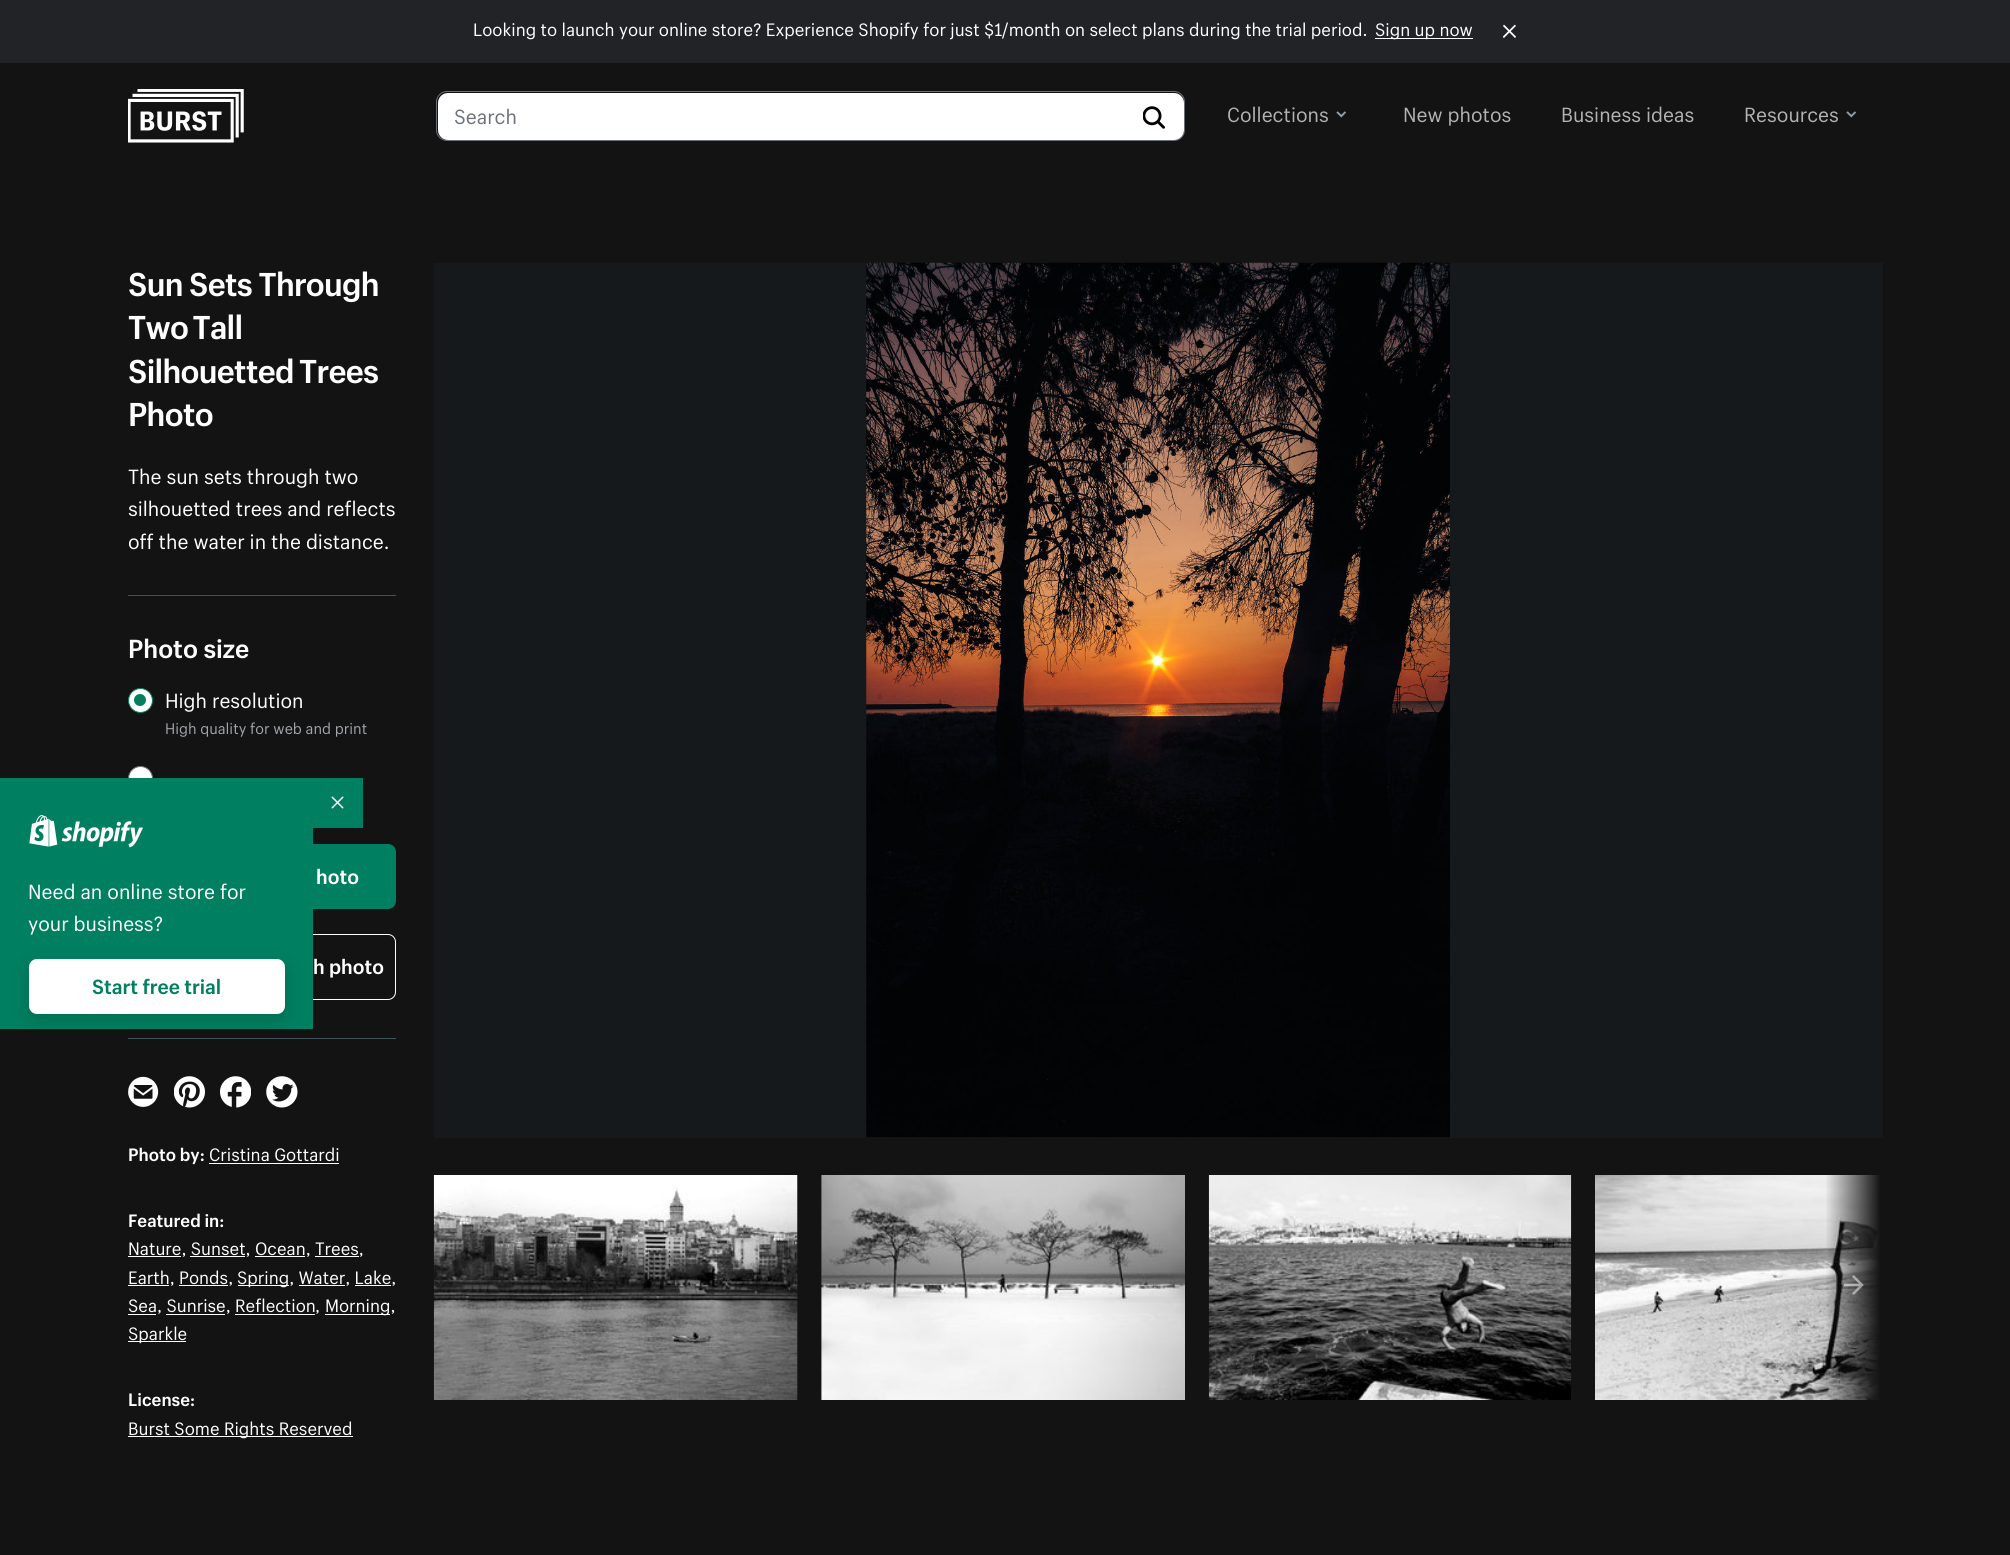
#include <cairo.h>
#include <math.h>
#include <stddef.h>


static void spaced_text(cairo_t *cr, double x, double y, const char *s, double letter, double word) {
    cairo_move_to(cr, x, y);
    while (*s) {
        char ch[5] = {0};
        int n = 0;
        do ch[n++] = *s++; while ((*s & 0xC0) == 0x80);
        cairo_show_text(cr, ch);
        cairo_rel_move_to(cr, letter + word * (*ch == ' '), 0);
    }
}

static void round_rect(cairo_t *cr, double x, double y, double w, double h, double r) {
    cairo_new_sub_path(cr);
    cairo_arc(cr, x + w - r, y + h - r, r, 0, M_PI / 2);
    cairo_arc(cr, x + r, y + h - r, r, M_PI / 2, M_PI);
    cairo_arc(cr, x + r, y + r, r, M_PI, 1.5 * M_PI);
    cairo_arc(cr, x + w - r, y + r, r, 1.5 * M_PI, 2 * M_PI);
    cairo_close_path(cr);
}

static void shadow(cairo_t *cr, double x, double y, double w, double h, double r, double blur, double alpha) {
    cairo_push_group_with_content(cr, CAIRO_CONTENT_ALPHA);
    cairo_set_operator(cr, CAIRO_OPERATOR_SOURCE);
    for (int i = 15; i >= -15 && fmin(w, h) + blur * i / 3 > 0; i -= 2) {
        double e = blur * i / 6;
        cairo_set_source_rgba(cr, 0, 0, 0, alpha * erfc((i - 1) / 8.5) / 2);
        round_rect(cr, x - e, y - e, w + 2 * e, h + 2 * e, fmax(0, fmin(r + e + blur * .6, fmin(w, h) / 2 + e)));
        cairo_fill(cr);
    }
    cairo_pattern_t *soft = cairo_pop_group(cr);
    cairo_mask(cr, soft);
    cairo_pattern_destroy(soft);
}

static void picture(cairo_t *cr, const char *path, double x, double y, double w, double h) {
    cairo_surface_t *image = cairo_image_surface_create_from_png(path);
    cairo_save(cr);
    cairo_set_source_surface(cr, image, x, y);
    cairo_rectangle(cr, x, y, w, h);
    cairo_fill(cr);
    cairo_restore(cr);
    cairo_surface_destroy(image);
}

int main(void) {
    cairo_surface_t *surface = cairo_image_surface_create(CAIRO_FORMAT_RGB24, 2010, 1555);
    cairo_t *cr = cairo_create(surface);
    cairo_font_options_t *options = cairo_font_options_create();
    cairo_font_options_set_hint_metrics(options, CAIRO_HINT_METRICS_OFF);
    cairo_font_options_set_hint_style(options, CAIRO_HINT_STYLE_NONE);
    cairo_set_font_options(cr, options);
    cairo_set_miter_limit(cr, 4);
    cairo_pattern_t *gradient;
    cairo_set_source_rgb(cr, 0.078, 0.078, 0.078);
    cairo_paint(cr);
    cairo_set_source_rgb(cr, 0.129, 0.137, 0.149);
    cairo_rectangle(cr, 0, 0, 2010, 63);
    cairo_fill(cr);
    cairo_select_font_face(cr, "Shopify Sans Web", CAIRO_FONT_SLANT_NORMAL, CAIRO_FONT_WEIGHT_NORMAL);
    cairo_set_font_size(cr, 17.5);
    cairo_set_source_rgb(cr, 1, 1, 1);
    cairo_move_to(cr, 473, 36);
    cairo_show_text(cr, "Looking to launch your online store? Experience Shopify for just $1/month on select plans during the trial period.");
    cairo_rectangle(cr, 1375, 38, 98, 1);
    cairo_fill(cr);
    cairo_move_to(cr, 1375, 36);
    cairo_show_text(cr, "Sign up now");
    picture(cr, "img1.png", 1503, 24, 13, 14);
    picture(cr, "img2.png", 128, 89, 116, 54);
    round_rect(cr, 436.5, 91.5, 748, 49, 10.5);
    cairo_set_source_rgb(cr, 0.42, 0.443, 0.467);
    cairo_set_line_width(cr, 1);
    cairo_stroke(cr);
    cairo_set_source_rgb(cr, 1, 1, 1);
    round_rect(cr, 438, 93, 746, 47, 10);
    cairo_fill(cr);
    cairo_set_font_size(cr, 20);
    cairo_set_source_rgb(cr, 0.42, 0.443, 0.467);
    cairo_move_to(cr, 454, 124);
    cairo_show_text(cr, "Search");
    picture(cr, "img3.png", 1143, 106, 22, 23);
    cairo_set_source_rgb(cr, 0.702, 0.702, 0.702);
    cairo_move_to(cr, 1227, 122);
    cairo_show_text(cr, "Collections");
    picture(cr, "img4.png", 1336, 111, 10, 7);
    cairo_move_to(cr, 1403, 122);
    cairo_show_text(cr, "New photos");
    cairo_move_to(cr, 1561, 122);
    cairo_show_text(cr, "Business ideas");
    cairo_move_to(cr, 1744, 122);
    cairo_show_text(cr, "Resources");
    picture(cr, "img4.png", 1846, 111, 10, 7);
    cairo_set_source_rgb(cr, 0.251, 0.322, 0.353);
    cairo_rectangle(cr, 128, 595, 268, 1);
    cairo_fill(cr);
    cairo_select_font_face(cr, "Shopify Sans Web", CAIRO_FONT_SLANT_NORMAL, CAIRO_FONT_WEIGHT_BOLD);
    cairo_set_font_size(cr, 32.25);
    cairo_set_source_rgb(cr, 1, 1, 1);
    spaced_text(cr, 128, 296, "Sun Sets Through", -0.7, 0);
    spaced_text(cr, 128, 339, "Two Tall", -0.7, -2);
    spaced_text(cr, 128, 383, "Silhouetted Trees", -0.7, -1);
    spaced_text(cr, 128, 426, "Photo", -0.7, 0);
    cairo_select_font_face(cr, "Shopify Sans Web", CAIRO_FONT_SLANT_NORMAL, CAIRO_FONT_WEIGHT_NORMAL);
    cairo_set_font_size(cr, 20);
    cairo_move_to(cr, 128, 484);
    cairo_show_text(cr, "The sun sets through two");
    cairo_move_to(cr, 128, 516);
    cairo_show_text(cr, "silhouetted trees and reflects");
    cairo_move_to(cr, 128, 549);
    cairo_show_text(cr, "off the water in the distance.");
    cairo_set_source_rgb(cr, 0.251, 0.322, 0.353);
    cairo_rectangle(cr, 128, 1038, 268, 1);
    cairo_fill(cr);
    cairo_select_font_face(cr, "Shopify Sans Web", CAIRO_FONT_SLANT_NORMAL, CAIRO_FONT_WEIGHT_BOLD);
    cairo_set_font_size(cr, 25.5);
    cairo_set_source_rgb(cr, 1, 1, 1);
    cairo_move_to(cr, 128, 658);
    cairo_show_text(cr, "Photo size");
    cairo_new_path(cr);
    cairo_arc(cr, 140.5, 700.5, 12, 0, 2 * M_PI);
    cairo_fill_preserve(cr);
    cairo_set_source_rgb(cr, 0, 0.502, 0.376);
    cairo_stroke(cr);
    cairo_select_font_face(cr, "Shopify Sans Web", CAIRO_FONT_SLANT_NORMAL, CAIRO_FONT_WEIGHT_NORMAL);
    cairo_set_font_size(cr, 20);
    cairo_set_source_rgb(cr, 1, 1, 1);
    cairo_move_to(cr, 165, 708);
    cairo_show_text(cr, "High resolution");
    cairo_set_source_rgb(cr, 0, 0.502, 0.376);
    cairo_new_path(cr);
    cairo_arc(cr, 140, 700, 6, 0, 2 * M_PI);
    cairo_fill(cr);
    cairo_set_font_size(cr, 15);
    cairo_set_source_rgb(cr, 0.624, 0.647, 0.671);
    cairo_move_to(cr, 165, 734);
    cairo_show_text(cr, "High quality for web and print");
    cairo_set_source_rgb(cr, 1, 1, 1);
    cairo_new_path(cr);
    cairo_arc(cr, 140.5, 778.5, 12, 0, 2 * M_PI);
    cairo_fill_preserve(cr);
    cairo_set_source_rgb(cr, 0.42, 0.443, 0.467);
    cairo_stroke(cr);
    cairo_set_source_rgb(cr, 0, 0.502, 0.376);
    round_rect(cr, 128, 844, 268, 65, 8);
    cairo_fill(cr);
    cairo_select_font_face(cr, "Shopify Sans Web", CAIRO_FONT_SLANT_NORMAL, CAIRO_FONT_WEIGHT_BOLD);
    cairo_set_font_size(cr, 20);
    cairo_set_source_rgb(cr, 1, 1, 1);
    cairo_move_to(cr, 316, 884);
    cairo_show_text(cr, "hoto");
    round_rect(cr, 128.5, 934.5, 267, 65, 7.5);
    cairo_stroke(cr);
    cairo_move_to(cr, 313, 974);
    cairo_show_text(cr, "h photo");
    picture(cr, "img5.png", 128, 1076, 31, 31);
    picture(cr, "img6.png", 174, 1076, 31, 32);
    picture(cr, "img7.png", 220, 1076, 31, 32);
    picture(cr, "img8.png", 266, 1076, 32, 32);
    cairo_set_font_size(cr, 17.5);
    cairo_move_to(cr, 128, 1161);
    cairo_show_text(cr, "Photo by:");
    cairo_select_font_face(cr, "Shopify Sans Web", CAIRO_FONT_SLANT_NORMAL, CAIRO_FONT_WEIGHT_NORMAL);
    cairo_move_to(cr, 209, 1161);
    cairo_show_text(cr, "Cristina Gottardi");
    cairo_rectangle(cr, 209, 1163, 130, 1);
    cairo_fill(cr);
    cairo_select_font_face(cr, "Shopify Sans Web", CAIRO_FONT_SLANT_NORMAL, CAIRO_FONT_WEIGHT_BOLD);
    cairo_move_to(cr, 128, 1227);
    cairo_show_text(cr, "Featured in:");
    cairo_rectangle(cr, 128, 1256, 53, 1);
    cairo_fill(cr);
    cairo_select_font_face(cr, "Shopify Sans Web", CAIRO_FONT_SLANT_NORMAL, CAIRO_FONT_WEIGHT_NORMAL);
    cairo_move_to(cr, 128, 1255);
    cairo_show_text(cr, "Nature, Sunset, Ocean, Trees,");
    cairo_rectangle(cr, 190, 1256, 55, 1);
    cairo_fill(cr);
    cairo_rectangle(cr, 255, 1256, 50, 1);
    cairo_fill(cr);
    cairo_rectangle(cr, 315, 1256, 44, 1);
    cairo_fill(cr);
    cairo_rectangle(cr, 128, 1285, 41, 1);
    cairo_fill(cr);
    cairo_move_to(cr, 128, 1284);
    cairo_show_text(cr, "Earth, Ponds,");
    cairo_rectangle(cr, 238, 1285, 51, 1);
    cairo_fill(cr);
    cairo_move_to(cr, 237, 1284);
    cairo_show_text(cr, "Spring, Water, Lake,");
    cairo_rectangle(cr, 179, 1285, 49, 1);
    cairo_fill(cr);
    cairo_rectangle(cr, 299, 1285, 46, 1);
    cairo_fill(cr);
    cairo_rectangle(cr, 355, 1285, 36, 1);
    cairo_fill(cr);
    cairo_move_to(cr, 128, 1312);
    cairo_show_text(cr, "Sea, Sunrise, Reflection");
    cairo_rectangle(cr, 128, 1314, 28, 1);
    cairo_fill(cr);
    cairo_move_to(cr, 315, 1312);
    cairo_show_text(cr, ",");
    cairo_rectangle(cr, 325, 1314, 65, 1);
    cairo_fill(cr);
    cairo_move_to(cr, 325, 1312);
    cairo_show_text(cr, "Morning,");
    cairo_rectangle(cr, 166, 1314, 59, 1);
    cairo_fill(cr);
    cairo_rectangle(cr, 235, 1314, 80, 1);
    cairo_fill(cr);
    cairo_rectangle(cr, 128, 1341, 58, 1);
    cairo_fill(cr);
    cairo_move_to(cr, 128, 1340);
    cairo_show_text(cr, "Sparkle");
    cairo_select_font_face(cr, "Shopify Sans Web", CAIRO_FONT_SLANT_NORMAL, CAIRO_FONT_WEIGHT_BOLD);
    cairo_move_to(cr, 128, 1406);
    cairo_show_text(cr, "License:");
    cairo_rectangle(cr, 128, 1436, 225, 1);
    cairo_fill(cr);
    cairo_select_font_face(cr, "Shopify Sans Web", CAIRO_FONT_SLANT_NORMAL, CAIRO_FONT_WEIGHT_NORMAL);
    cairo_move_to(cr, 128, 1435);
    cairo_show_text(cr, "Burst Some Rights Reserved");
    cairo_set_source_rgb(cr, 0.086, 0.098, 0.106);
    cairo_rectangle(cr, 434, 263, 1449, 875);
    cairo_fill(cr);
    picture(cr, "img9.png", 866, 262, 584, 876);
    cairo_rectangle(cr, 797, 1175, 1, 225);
    cairo_fill(cr);
    picture(cr, "img10.png", 433, 1175, 365, 225);
    cairo_rectangle(cr, 821, 1175, 1, 225);
    cairo_fill(cr);
    picture(cr, "img11.png", 821, 1175, 364, 225);
    picture(cr, "img12.png", 1208, 1175, 364, 225);
    picture(cr, "img13.png", 1595, 1175, 285, 225);
    gradient = cairo_pattern_create_linear(1825, 1288, 1883, 1288);
    cairo_pattern_add_color_stop_rgba(gradient, 0, 0.078, 0.078, 0.078, 0);
    cairo_pattern_add_color_stop_rgba(gradient, 0.95, 0.078, 0.078, 0.078, 1);
    cairo_pattern_add_color_stop_rgba(gradient, 1, 0.078, 0.078, 0.078, 1);
    cairo_set_source(cr, gradient);
    cairo_pattern_destroy(gradient);
    cairo_rectangle(cr, 1826, 1175, 54, 225);
    cairo_fill(cr);
    picture(cr, "img14.png", 1844, 1275, 20, 20);
    cairo_set_source_rgb(cr, 0, 0.502, 0.376);
    cairo_rectangle(cr, 313, 778, 50, 50);
    cairo_fill(cr);
    picture(cr, "img15.png", 331, 796, 13, 13);
    cairo_rectangle(cr, 0, 778, 313, 251);
    cairo_fill(cr);
    picture(cr, "img16.png", 29, 815, 114, 33);
    cairo_set_font_size(cr, 20);
    cairo_set_source_rgb(cr, 1, 1, 1);
    cairo_move_to(cr, 28, 899);
    cairo_show_text(cr, "Need an online store for");
    cairo_move_to(cr, 28, 931);
    cairo_show_text(cr, "your business?");
    cairo_set_source_rgb(cr, 0, 0, 0);
    shadow(cr, 29, 965, 256, 55, 8, 9.5, 0.15);
    cairo_set_source_rgb(cr, 1, 1, 1);
    round_rect(cr, 29, 959, 256, 55, 8);
    cairo_fill(cr);
    cairo_select_font_face(cr, "Shopify Sans Web", CAIRO_FONT_SLANT_NORMAL, CAIRO_FONT_WEIGHT_BOLD);
    cairo_set_source_rgb(cr, 0, 0.502, 0.376);
    cairo_move_to(cr, 92, 994);
    cairo_show_text(cr, "Start free trial");
    cairo_surface_write_to_png(surface, "page.png");
    cairo_font_options_destroy(options);
    cairo_destroy(cr);
    cairo_surface_destroy(surface);
    return 0;
}
